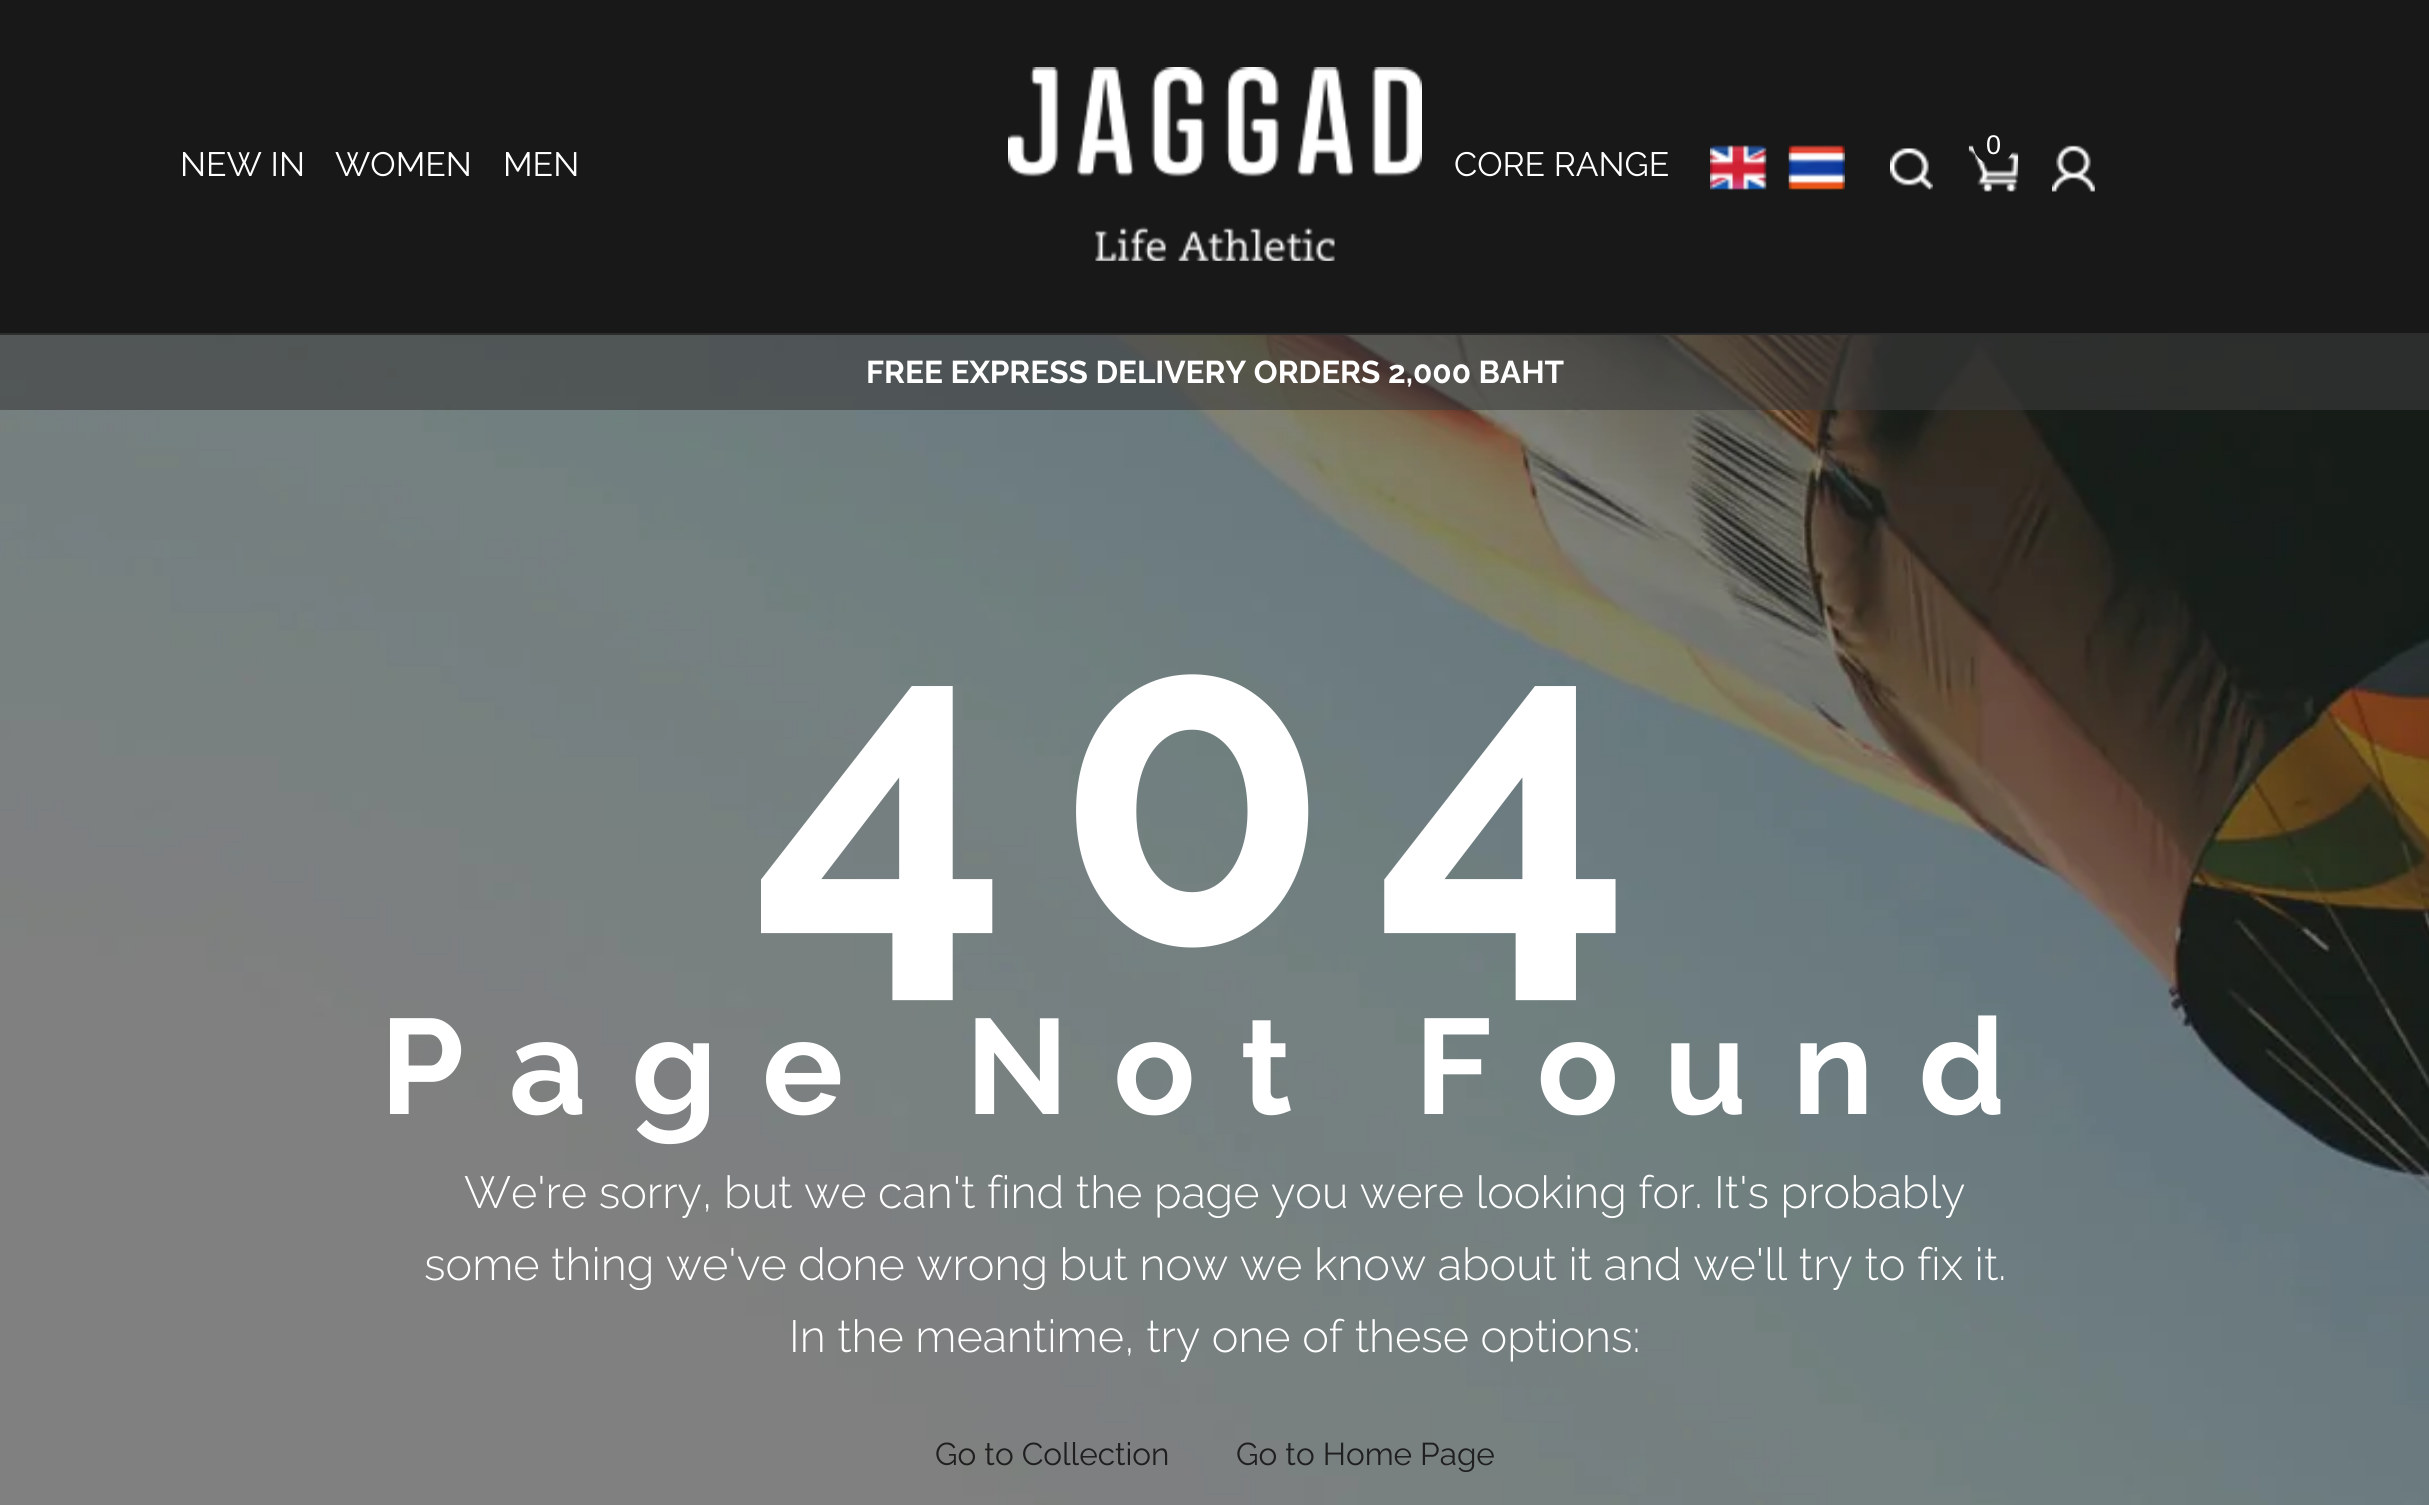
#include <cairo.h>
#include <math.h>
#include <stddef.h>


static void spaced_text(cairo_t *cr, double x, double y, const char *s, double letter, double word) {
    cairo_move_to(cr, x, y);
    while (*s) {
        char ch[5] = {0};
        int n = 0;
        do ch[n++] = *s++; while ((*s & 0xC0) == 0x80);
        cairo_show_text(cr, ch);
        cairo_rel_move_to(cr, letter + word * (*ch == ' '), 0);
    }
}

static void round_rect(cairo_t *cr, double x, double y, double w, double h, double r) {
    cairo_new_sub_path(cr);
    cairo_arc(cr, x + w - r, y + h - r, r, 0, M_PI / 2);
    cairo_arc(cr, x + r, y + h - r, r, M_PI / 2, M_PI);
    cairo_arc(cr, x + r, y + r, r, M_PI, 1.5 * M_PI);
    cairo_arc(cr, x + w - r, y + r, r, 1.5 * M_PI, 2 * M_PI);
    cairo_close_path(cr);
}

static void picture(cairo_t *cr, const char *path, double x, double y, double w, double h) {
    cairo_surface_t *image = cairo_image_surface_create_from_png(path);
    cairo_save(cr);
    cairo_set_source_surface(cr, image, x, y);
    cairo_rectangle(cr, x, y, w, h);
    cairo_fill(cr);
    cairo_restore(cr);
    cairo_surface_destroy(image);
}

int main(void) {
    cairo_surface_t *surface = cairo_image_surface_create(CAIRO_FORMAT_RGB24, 2429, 1505);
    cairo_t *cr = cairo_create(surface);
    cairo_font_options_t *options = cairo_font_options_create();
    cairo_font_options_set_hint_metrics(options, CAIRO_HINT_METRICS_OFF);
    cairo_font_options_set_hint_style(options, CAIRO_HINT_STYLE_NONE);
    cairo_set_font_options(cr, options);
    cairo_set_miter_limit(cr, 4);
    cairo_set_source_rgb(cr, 1, 1, 1);
    cairo_paint(cr);
    cairo_set_source_rgb(cr, 0.094, 0.094, 0.094);
    cairo_rectangle(cr, 0, 0, 2429, 335);
    cairo_fill(cr);
    cairo_select_font_face(cr, "Raleway", CAIRO_FONT_SLANT_NORMAL, CAIRO_FONT_WEIGHT_NORMAL);
    cairo_set_font_size(cr, 33.75);
    cairo_set_source_rgb(cr, 1, 1, 1);
    cairo_move_to(cr, 180, 176);
    cairo_show_text(cr, "NEW IN");
    cairo_move_to(cr, 335, 176);
    cairo_show_text(cr, "WOMEN");
    cairo_move_to(cr, 503, 176);
    cairo_show_text(cr, "MEN");
    picture(cr, "img1.png", 1008, 67, 414, 194);
    picture(cr, "img2.png", 1710, 145, 57, 46);
    picture(cr, "img3.png", 1788, 145, 57, 46);
    picture(cr, "img4.png", 1890, 148, 43, 42);
    picture(cr, "img5.png", 1968, 145, 51, 47);
    cairo_set_source_rgb(cr, 0.094, 0.094, 0.094);
    round_rect(cr, 1973, 124, 41, 40, 20);
    cairo_fill(cr);
    cairo_select_font_face(cr, "Liberation Sans", CAIRO_FONT_SLANT_NORMAL, CAIRO_FONT_WEIGHT_NORMAL);
    cairo_set_font_size(cr, 27);
    cairo_set_source_rgb(cr, 1, 1, 1);
    cairo_move_to(cr, 1986, 154);
    cairo_show_text(cr, "0");
    picture(cr, "img6.png", 2052, 145, 43, 47);
    cairo_select_font_face(cr, "Raleway", CAIRO_FONT_SLANT_NORMAL, CAIRO_FONT_WEIGHT_NORMAL);
    cairo_set_font_size(cr, 33.75);
    cairo_move_to(cr, 1454, 176);
    cairo_show_text(cr, "CORE RANGE");
    picture(cr, "img7.png", 0, 335, 2429, 1170);
    cairo_set_source_rgba(cr, 0.231, 0.231, 0.231, 0.6);
    cairo_rectangle(cr, 0, 333, 2429, 77);
    cairo_fill(cr);
    cairo_select_font_face(cr, "Raleway", CAIRO_FONT_SLANT_NORMAL, CAIRO_FONT_WEIGHT_BOLD);
    cairo_set_font_size(cr, 31.5);
    cairo_set_source_rgb(cr, 1, 1, 1);
    cairo_move_to(cr, 866, 383);
    cairo_show_text(cr, "FREE EXPRESS DELIVERY ORDERS 2,000 BAHT");
    cairo_set_font_size(cr, 450);
    spaced_text(cr, 752, 943, "404", 45, 0);
    cairo_set_font_size(cr, 135);
    spaced_text(cr, 380, 1114, "Page Not Found", 45, 0);
    cairo_select_font_face(cr, "Raleway Light", CAIRO_FONT_SLANT_NORMAL, CAIRO_FONT_WEIGHT_NORMAL);
    cairo_set_font_size(cr, 45);
    cairo_move_to(cr, 464, 1208);
    cairo_show_text(cr, "We're sorry, but we can't find the page you were looking for. It's probably");
    cairo_move_to(cr, 424, 1280);
    cairo_show_text(cr, "some thing we've done wrong but now we know about it and we'll try to fix it.");
    cairo_move_to(cr, 789, 1352);
    cairo_show_text(cr, "In the meantime, try one of these options:");
    cairo_select_font_face(cr, "Raleway", CAIRO_FONT_SLANT_NORMAL, CAIRO_FONT_WEIGHT_NORMAL);
    cairo_set_font_size(cr, 31.5);
    cairo_set_source_rgb(cr, 0.122, 0.122, 0.122);
    cairo_move_to(cr, 935, 1465);
    cairo_show_text(cr, "Go to Collection");
    cairo_move_to(cr, 1236, 1465);
    cairo_show_text(cr, "Go to Home Page");
    cairo_surface_write_to_png(surface, "page.png");
    cairo_font_options_destroy(options);
    cairo_destroy(cr);
    cairo_surface_destroy(surface);
    return 0;
}
